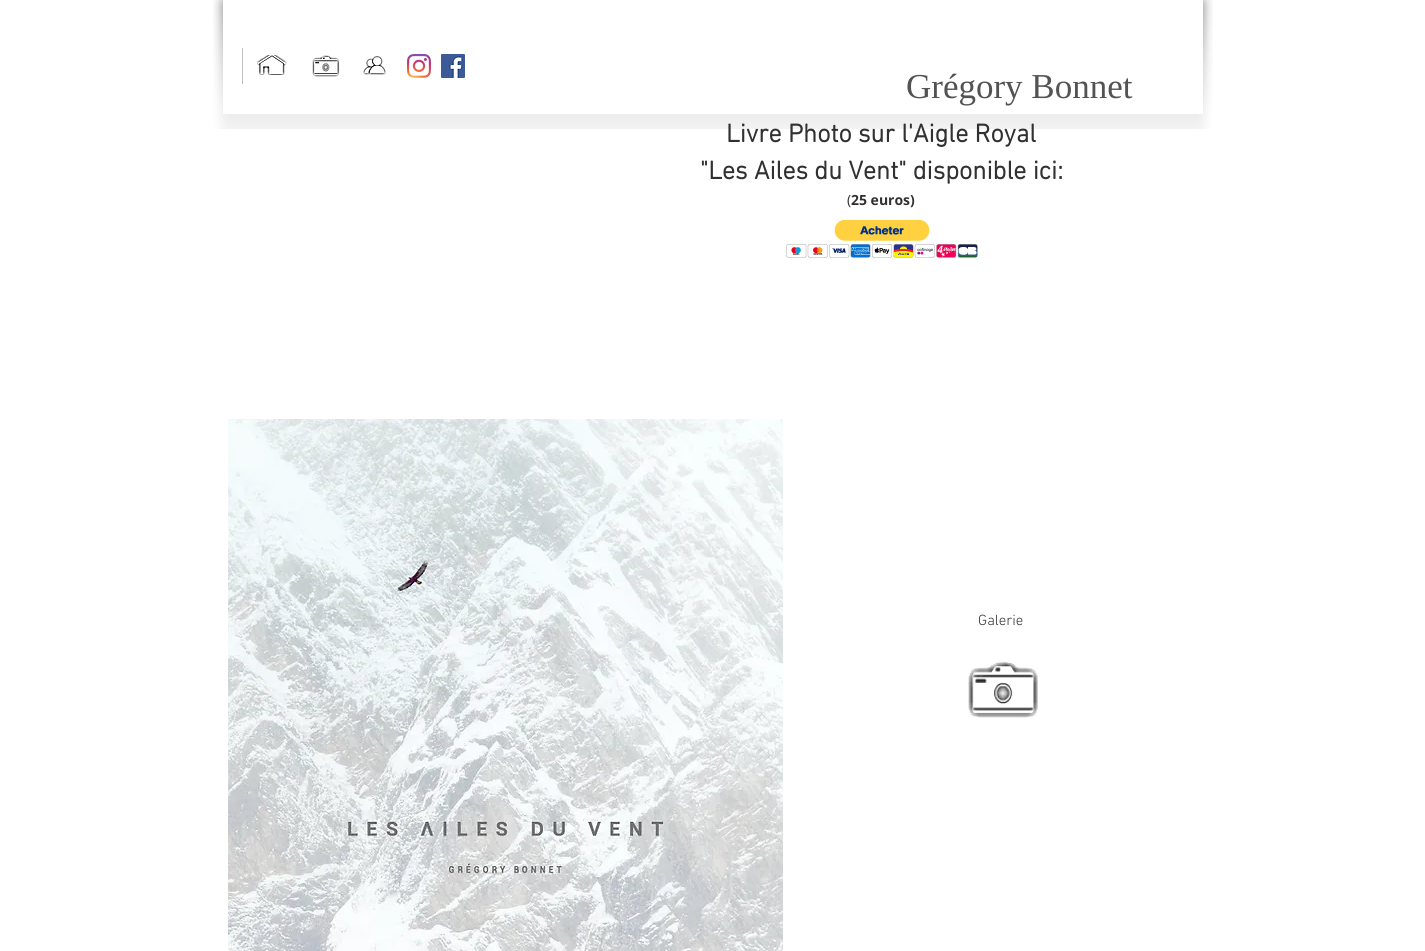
#include <cairo.h>
#include <math.h>
#include <stddef.h>


static void picture(cairo_t *cr, const char *path, double x, double y, double w, double h) {
    cairo_surface_t *image = cairo_image_surface_create_from_png(path);
    cairo_save(cr);
    cairo_set_source_surface(cr, image, x, y);
    cairo_rectangle(cr, x, y, w, h);
    cairo_fill(cr);
    cairo_restore(cr);
    cairo_surface_destroy(image);
}

int main(void) {
    cairo_surface_t *surface = cairo_image_surface_create(CAIRO_FORMAT_RGB24, 1425, 951);
    cairo_t *cr = cairo_create(surface);
    cairo_font_options_t *options = cairo_font_options_create();
    cairo_font_options_set_hint_metrics(options, CAIRO_HINT_METRICS_OFF);
    cairo_font_options_set_hint_style(options, CAIRO_HINT_STYLE_NONE);
    cairo_set_font_options(cr, options);
    cairo_set_miter_limit(cr, 4);
    cairo_set_source_rgb(cr, 1, 1, 1);
    cairo_paint(cr);
    picture(cr, "img1.png", 213, 0, 45, 129);
    picture(cr, "img3.png", 1168, 0, 45, 129);
    cairo_set_source_rgb(cr, 1, 1, 1);
    cairo_rectangle(cr, 223, 0, 980, 114);
    cairo_fill(cr);
    picture(cr, "img2.png", 258, 114, 910, 15);
    cairo_set_source_rgb(cr, 0.753, 0.753, 0.753);
    cairo_rectangle(cr, 242, 48, 1, 36);
    cairo_fill(cr);
    picture(cr, "img4.png", 256, 55, 31, 20);
    picture(cr, "img5.png", 312, 55, 28, 22);
    picture(cr, "img6.png", 363, 56, 23, 19);
    picture(cr, "img7.png", 407, 54, 24, 24);
    picture(cr, "img8.png", 441, 54, 24, 24);
    cairo_select_font_face(cr, "Liberation Serif", CAIRO_FONT_SLANT_NORMAL, CAIRO_FONT_WEIGHT_NORMAL);
    cairo_set_font_size(cr, 35);
    cairo_set_source_rgb(cr, 0.325, 0.325, 0.325);
    cairo_move_to(cr, 906, 98);
    cairo_show_text(cr, "Grégory Bonnet");
    cairo_select_font_face(cr, "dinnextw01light", CAIRO_FONT_SLANT_NORMAL, CAIRO_FONT_WEIGHT_BOLD);
    cairo_set_font_size(cr, 26);
    cairo_set_source_rgb(cr, 0.192, 0.192, 0.192);
    cairo_move_to(cr, 726, 142);
    cairo_show_text(cr, "Livre Photo sur l'Aigle Royal");
    cairo_move_to(cr, 700, 179);
    cairo_show_text(cr, "\"Les Ailes du Vent\" disponible ici:");
    cairo_select_font_face(cr, "Open Sans", CAIRO_FONT_SLANT_NORMAL, CAIRO_FONT_WEIGHT_NORMAL);
    cairo_set_font_size(cr, 14);
    cairo_move_to(cr, 847, 205);
    cairo_show_text(cr, "(");
    cairo_select_font_face(cr, "Open Sans", CAIRO_FONT_SLANT_NORMAL, CAIRO_FONT_WEIGHT_BOLD);
    cairo_move_to(cr, 851, 205);
    cairo_show_text(cr, "25 euros)");
    picture(cr, "img9.png", 786, 220, 192, 38);
    picture(cr, "img10.png", 228, 419, 555, 532);
    cairo_select_font_face(cr, "dinnextw01light Light", CAIRO_FONT_SLANT_NORMAL, CAIRO_FONT_WEIGHT_NORMAL);
    cairo_set_font_size(cr, 15);
    cairo_move_to(cr, 978, 625);
    cairo_show_text(cr, "Galerie");
    picture(cr, "img11.png", 968, 661, 70, 57);
    cairo_surface_write_to_png(surface, "page.png");
    cairo_font_options_destroy(options);
    cairo_destroy(cr);
    cairo_surface_destroy(surface);
    return 0;
}
